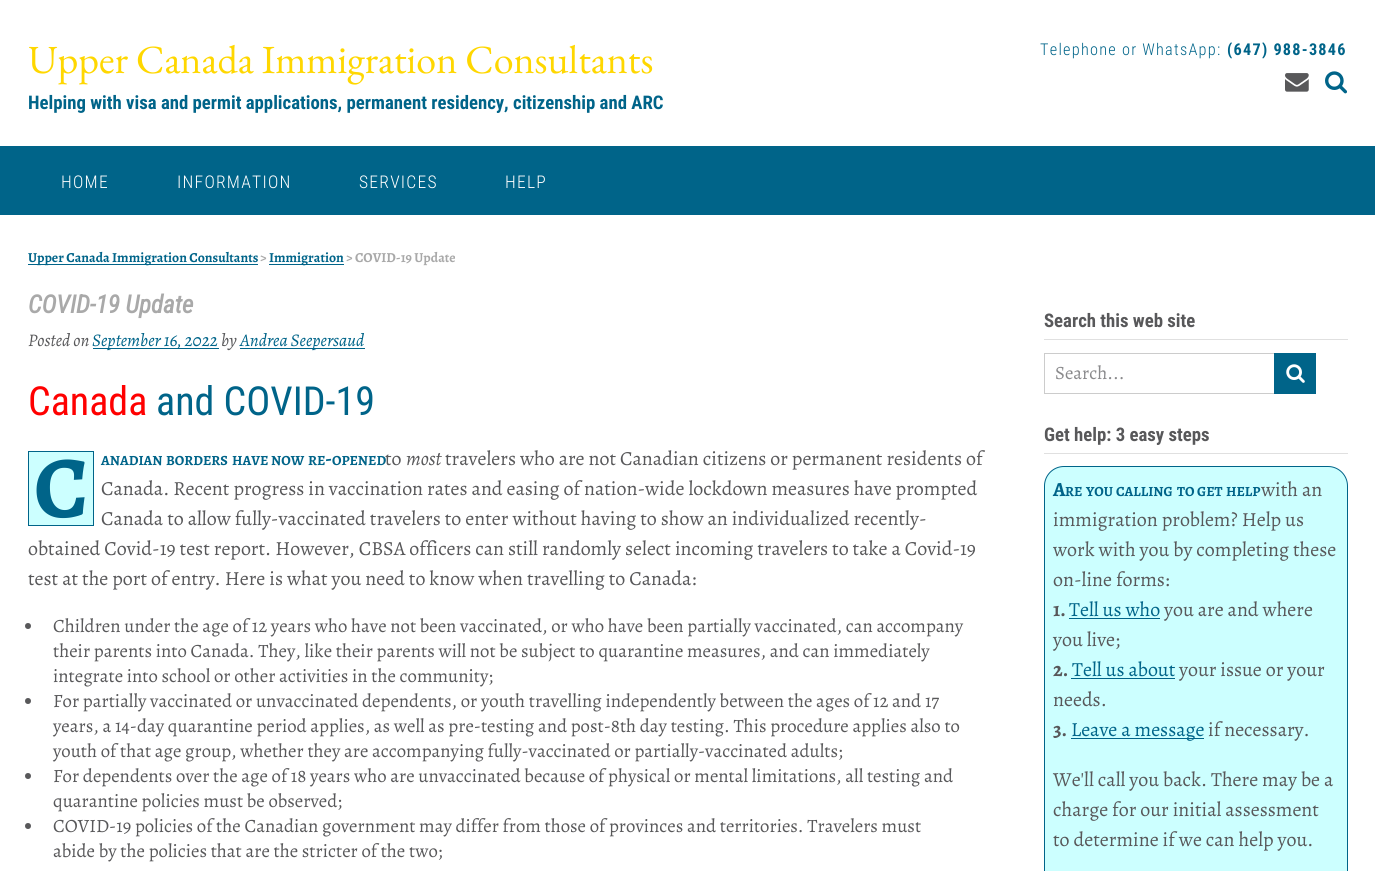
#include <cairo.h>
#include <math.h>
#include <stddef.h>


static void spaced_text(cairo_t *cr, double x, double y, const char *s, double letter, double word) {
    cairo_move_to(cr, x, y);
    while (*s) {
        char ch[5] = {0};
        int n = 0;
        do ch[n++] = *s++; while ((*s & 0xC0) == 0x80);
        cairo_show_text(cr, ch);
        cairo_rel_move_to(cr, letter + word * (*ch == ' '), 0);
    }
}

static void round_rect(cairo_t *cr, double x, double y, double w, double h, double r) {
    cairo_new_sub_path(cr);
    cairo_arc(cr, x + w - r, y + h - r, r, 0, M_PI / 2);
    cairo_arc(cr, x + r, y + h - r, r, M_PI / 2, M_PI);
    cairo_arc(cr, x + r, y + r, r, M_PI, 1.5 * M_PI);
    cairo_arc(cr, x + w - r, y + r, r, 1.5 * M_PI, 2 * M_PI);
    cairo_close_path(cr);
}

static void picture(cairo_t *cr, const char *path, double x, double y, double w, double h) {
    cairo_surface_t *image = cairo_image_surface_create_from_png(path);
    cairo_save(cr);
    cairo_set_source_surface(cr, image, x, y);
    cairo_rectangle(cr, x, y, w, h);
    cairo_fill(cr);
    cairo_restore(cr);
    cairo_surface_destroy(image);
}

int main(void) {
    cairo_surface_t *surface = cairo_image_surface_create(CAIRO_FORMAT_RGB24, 1375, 871);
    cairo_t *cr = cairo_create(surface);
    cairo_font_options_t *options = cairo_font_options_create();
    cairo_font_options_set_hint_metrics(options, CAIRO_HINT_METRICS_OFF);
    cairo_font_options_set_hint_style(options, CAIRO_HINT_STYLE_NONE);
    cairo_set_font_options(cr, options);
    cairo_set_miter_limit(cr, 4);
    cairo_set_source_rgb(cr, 1, 1, 1);
    cairo_paint(cr);
    cairo_select_font_face(cr, "EB Garamond", CAIRO_FONT_SLANT_NORMAL, CAIRO_FONT_WEIGHT_NORMAL);
    cairo_set_font_size(cr, 40);
    cairo_set_source_rgb(cr, 1, 0.843, 0);
    cairo_move_to(cr, 28, 73);
    cairo_show_text(cr, "Upper Canada Immigration Consultants");
    cairo_select_font_face(cr, "Roboto Condensed", CAIRO_FONT_SLANT_NORMAL, CAIRO_FONT_WEIGHT_BOLD);
    cairo_set_font_size(cr, 18.75);
    cairo_set_source_rgb(cr, 0, 0.392, 0.537);
    cairo_move_to(cr, 28, 109);
    cairo_show_text(cr, "Helping with visa and permit applications, permanent residency, citizenship and ARC");
    cairo_select_font_face(cr, "Roboto Condensed Light", CAIRO_FONT_SLANT_NORMAL, CAIRO_FONT_WEIGHT_NORMAL);
    cairo_set_font_size(cr, 16.25);
    spaced_text(cr, 1040, 55, "Telephone or WhatsApp:", 1.25, 0);
    cairo_select_font_face(cr, "Roboto Condensed", CAIRO_FONT_SLANT_NORMAL, CAIRO_FONT_WEIGHT_BOLD);
    spaced_text(cr, 1227, 55, "(647) 988-3846", 1.25, 0);
    picture(cr, "img1.png", 1285, 73, 24, 19);
    picture(cr, "img2.png", 1325, 71, 22, 23);
    cairo_rectangle(cr, 0, 146, 1375, 69);
    cairo_fill(cr);
    cairo_select_font_face(cr, "Roboto Condensed Light", CAIRO_FONT_SLANT_NORMAL, CAIRO_FONT_WEIGHT_NORMAL);
    cairo_set_font_size(cr, 17.5);
    cairo_set_source_rgb(cr, 1, 1, 1);
    spaced_text(cr, 61, 188, "HOME", 1.25, 0);
    spaced_text(cr, 177, 188, "INFORMATION", 1.25, 0);
    spaced_text(cr, 359, 188, "SERVICES", 1.25, 0);
    spaced_text(cr, 505, 188, "HELP", 1.25, 0);
    cairo_set_source_rgb(cr, 0, 0.392, 0.537);
    cairo_rectangle(cr, 28, 264, 230, 1);
    cairo_fill(cr);
    cairo_select_font_face(cr, "Alegreya", CAIRO_FONT_SLANT_NORMAL, CAIRO_FONT_WEIGHT_BOLD);
    cairo_set_font_size(cr, 13.75);
    cairo_move_to(cr, 28, 262);
    cairo_show_text(cr, "Upper Canada Immigration Consultants");
    cairo_set_source_rgb(cr, 0.663, 0.663, 0.663);
    cairo_move_to(cr, 260, 262);
    cairo_show_text(cr, ">");
    cairo_set_source_rgb(cr, 0, 0.392, 0.537);
    cairo_rectangle(cr, 269, 264, 75, 1);
    cairo_fill(cr);
    cairo_move_to(cr, 269, 262);
    cairo_show_text(cr, "Immigration");
    cairo_set_source_rgb(cr, 0.663, 0.663, 0.663);
    cairo_move_to(cr, 346, 262);
    cairo_show_text(cr, "> COVID-19 Update");
    cairo_select_font_face(cr, "Roboto Condensed", CAIRO_FONT_SLANT_ITALIC, CAIRO_FONT_WEIGHT_BOLD);
    cairo_set_font_size(cr, 25);
    cairo_move_to(cr, 28, 313);
    cairo_show_text(cr, "COVID-19 Update");
    cairo_select_font_face(cr, "Alegreya", CAIRO_FONT_SLANT_ITALIC, CAIRO_FONT_WEIGHT_NORMAL);
    cairo_set_font_size(cr, 17.75);
    cairo_set_source_rgb(cr, 0.345, 0.345, 0.353);
    cairo_move_to(cr, 28, 346);
    cairo_show_text(cr, "Posted on");
    cairo_set_source_rgb(cr, 0, 0.392, 0.537);
    cairo_rectangle(cr, 93, 348, 126, 1);
    cairo_fill(cr);
    cairo_move_to(cr, 92, 346);
    cairo_show_text(cr, "September 16, 2022");
    cairo_set_source_rgb(cr, 0.345, 0.345, 0.353);
    cairo_move_to(cr, 221, 346);
    cairo_show_text(cr, "by");
    cairo_set_source_rgb(cr, 0, 0.392, 0.537);
    cairo_rectangle(cr, 240, 348, 125, 1);
    cairo_fill(cr);
    cairo_move_to(cr, 240, 346);
    cairo_show_text(cr, "Andrea Seepersaud");
    cairo_select_font_face(cr, "Roboto Condensed", CAIRO_FONT_SLANT_NORMAL, CAIRO_FONT_WEIGHT_NORMAL);
    cairo_set_font_size(cr, 40);
    cairo_set_source_rgb(cr, 1, 0, 0);
    cairo_move_to(cr, 28, 415);
    cairo_show_text(cr, "Canada");
    cairo_set_source_rgb(cr, 0, 0.392, 0.537);
    cairo_move_to(cr, 156, 415);
    cairo_show_text(cr, "and COVID-19");
    cairo_select_font_face(cr, "Alegreya", CAIRO_FONT_SLANT_NORMAL, CAIRO_FONT_WEIGHT_BOLD);
    cairo_set_font_size(cr, 14);
    cairo_move_to(cr, 101, 465);
    cairo_show_text(cr, "ANADIAN");
    cairo_move_to(cr, 166, 465);
    cairo_show_text(cr, "BORDERS");
    cairo_move_to(cr, 232, 465);
    cairo_show_text(cr, "HAVE");
    cairo_move_to(cr, 271, 465);
    cairo_show_text(cr, "NOW");
    cairo_move_to(cr, 308, 465);
    cairo_show_text(cr, "RE");
    cairo_set_font_size(cr, 20);
    cairo_move_to(cr, 325, 465);
    cairo_show_text(cr, "-");
    cairo_set_font_size(cr, 14);
    cairo_move_to(cr, 332, 465);
    cairo_show_text(cr, "OPENED");
    cairo_select_font_face(cr, "Alegreya", CAIRO_FONT_SLANT_NORMAL, CAIRO_FONT_WEIGHT_NORMAL);
    cairo_set_font_size(cr, 20);
    cairo_set_source_rgb(cr, 0.345, 0.345, 0.353);
    cairo_move_to(cr, 385, 465);
    cairo_show_text(cr, "to");
    cairo_select_font_face(cr, "Alegreya", CAIRO_FONT_SLANT_ITALIC, CAIRO_FONT_WEIGHT_NORMAL);
    cairo_move_to(cr, 406, 465);
    cairo_show_text(cr, "most");
    cairo_select_font_face(cr, "Alegreya", CAIRO_FONT_SLANT_NORMAL, CAIRO_FONT_WEIGHT_NORMAL);
    cairo_move_to(cr, 445, 465);
    cairo_show_text(cr, "travelers who are not Canadian citizens or permanent residents of");
    cairo_move_to(cr, 101, 495);
    cairo_show_text(cr, "Canada. Recent progress in vaccination rates and easing of nation-wide lockdown measures have prompted");
    cairo_move_to(cr, 101, 525);
    cairo_show_text(cr, "Canada to allow fully-vaccinated travelers to enter without having to show an individualized recently-");
    cairo_move_to(cr, 28, 555);
    cairo_show_text(cr, "obtained Covid-19 test report. However, CBSA officers can still randomly select incoming travelers to take a Covid-19");
    cairo_move_to(cr, 28, 585);
    cairo_show_text(cr, "test at the port of entry. Here is what you need to know when travelling to Canada:");
    cairo_set_source_rgb(cr, 0.8, 1, 1);
    cairo_rectangle(cr, 28.5, 451.5, 65, 74);
    cairo_fill_preserve(cr);
    cairo_set_source_rgb(cr, 0, 0.392, 0.537);
    cairo_set_line_width(cr, 1);
    cairo_stroke(cr);
    cairo_select_font_face(cr, "Alegreya", CAIRO_FONT_SLANT_NORMAL, CAIRO_FONT_WEIGHT_BOLD);
    cairo_set_font_size(cr, 88);
    cairo_move_to(cr, 34, 517);
    cairo_show_text(cr, "C");
    cairo_set_source_rgb(cr, 0.345, 0.345, 0.353);
    cairo_new_path(cr);
    cairo_arc(cr, 28, 626, 3, 0, 2 * M_PI);
    cairo_fill(cr);
    cairo_select_font_face(cr, "Alegreya", CAIRO_FONT_SLANT_NORMAL, CAIRO_FONT_WEIGHT_NORMAL);
    cairo_set_font_size(cr, 18.75);
    cairo_move_to(cr, 53, 632);
    cairo_show_text(cr, "Children under the age of 12 years who have not been vaccinated, or who have been partially vaccinated, can accompany");
    cairo_move_to(cr, 53, 657);
    cairo_show_text(cr, "their parents into Canada. They, like their parents will not be subject to quarantine measures, and can immediately");
    cairo_move_to(cr, 53, 682);
    cairo_show_text(cr, "integrate into school or other activities in the community;");
    cairo_new_path(cr);
    cairo_arc(cr, 28, 701, 3, 0, 2 * M_PI);
    cairo_fill(cr);
    cairo_move_to(cr, 53, 707);
    cairo_show_text(cr, "For partially vaccinated or unvaccinated dependents, or youth travelling independently between the ages of 12 and 17");
    cairo_move_to(cr, 53, 732);
    cairo_show_text(cr, "years, a 14-day quarantine period applies, as well as pre-testing and post-8th day testing. This procedure applies also to");
    cairo_move_to(cr, 53, 757);
    cairo_show_text(cr, "youth of that age group, whether they are accompanying fully-vaccinated or partially-vaccinated adults;");
    cairo_new_path(cr);
    cairo_arc(cr, 28, 776, 3, 0, 2 * M_PI);
    cairo_fill(cr);
    cairo_move_to(cr, 53, 782);
    cairo_show_text(cr, "For dependents over the age of 18 years who are unvaccinated because of physical or mental limitations, all testing and");
    cairo_move_to(cr, 53, 807);
    cairo_show_text(cr, "quarantine policies must be observed;");
    cairo_new_path(cr);
    cairo_arc(cr, 28, 826, 3, 0, 2 * M_PI);
    cairo_fill(cr);
    cairo_move_to(cr, 53, 832);
    cairo_show_text(cr, "COVID-19 policies of the Canadian government may differ from those of provinces and territories. Travelers must");
    cairo_move_to(cr, 53, 857);
    cairo_show_text(cr, "abide by the policies that are the stricter of the two;");
    cairo_set_source_rgb(cr, 0.878, 0.878, 0.878);
    cairo_rectangle(cr, 1044, 339, 304, 1);
    cairo_fill(cr);
    cairo_select_font_face(cr, "Roboto Condensed", CAIRO_FONT_SLANT_NORMAL, CAIRO_FONT_WEIGHT_BOLD);
    cairo_set_source_rgb(cr, 0.345, 0.345, 0.353);
    cairo_move_to(cr, 1044, 327);
    cairo_show_text(cr, "Search this web site");
    cairo_rectangle(cr, 1044.5, 353.5, 233, 40);
    cairo_set_source_rgb(cr, 0.8, 0.8, 0.8);
    cairo_stroke(cr);
    cairo_select_font_face(cr, "Alegreya", CAIRO_FONT_SLANT_NORMAL, CAIRO_FONT_WEIGHT_NORMAL);
    cairo_set_source_rgb(cr, 0.541, 0.541, 0.549);
    cairo_move_to(cr, 1055, 379);
    cairo_show_text(cr, "Search...");
    cairo_set_source_rgb(cr, 0, 0.392, 0.537);
    cairo_rectangle(cr, 1274, 353, 42, 41);
    cairo_fill(cr);
    picture(cr, "img3.png", 1286, 364, 19, 19);
    cairo_set_source_rgb(cr, 0.878, 0.878, 0.878);
    cairo_rectangle(cr, 1044, 453, 304, 1);
    cairo_fill(cr);
    cairo_select_font_face(cr, "Roboto Condensed", CAIRO_FONT_SLANT_NORMAL, CAIRO_FONT_WEIGHT_BOLD);
    cairo_set_source_rgb(cr, 0.345, 0.345, 0.353);
    cairo_move_to(cr, 1044, 441);
    cairo_show_text(cr, "Get help: 3 easy steps");
    cairo_set_source_rgb(cr, 0.8, 1, 1);
    round_rect(cr, 1044.5, 466.5, 303, 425, 19.5);
    cairo_fill_preserve(cr);
    cairo_set_source_rgb(cr, 0, 0.392, 0.537);
    cairo_stroke(cr);
    cairo_select_font_face(cr, "Alegreya", CAIRO_FONT_SLANT_NORMAL, CAIRO_FONT_WEIGHT_BOLD);
    cairo_set_font_size(cr, 20);
    cairo_move_to(cr, 1053, 496);
    cairo_show_text(cr, "A");
    cairo_set_font_size(cr, 14);
    cairo_move_to(cr, 1065, 496);
    cairo_show_text(cr, "RE");
    cairo_move_to(cr, 1086, 496);
    cairo_show_text(cr, "YOU");
    cairo_move_to(cr, 1116, 496);
    cairo_show_text(cr, "CALLING");
    cairo_move_to(cr, 1177, 496);
    cairo_show_text(cr, "TO");
    cairo_move_to(cr, 1197, 496);
    cairo_show_text(cr, "GET");
    cairo_move_to(cr, 1226, 496);
    cairo_show_text(cr, "HELP");
    cairo_select_font_face(cr, "Alegreya", CAIRO_FONT_SLANT_NORMAL, CAIRO_FONT_WEIGHT_NORMAL);
    cairo_set_font_size(cr, 20);
    cairo_set_source_rgb(cr, 0.345, 0.345, 0.353);
    cairo_move_to(cr, 1261, 496);
    cairo_show_text(cr, "with an");
    cairo_move_to(cr, 1053, 526);
    cairo_show_text(cr, "immigration problem? Help us");
    cairo_move_to(cr, 1053, 556);
    cairo_show_text(cr, "work with you by completing these");
    cairo_move_to(cr, 1053, 586);
    cairo_show_text(cr, "on-line forms:");
    cairo_select_font_face(cr, "Alegreya", CAIRO_FONT_SLANT_NORMAL, CAIRO_FONT_WEIGHT_BOLD);
    cairo_move_to(cr, 1053, 616);
    cairo_show_text(cr, "1.");
    cairo_select_font_face(cr, "Alegreya", CAIRO_FONT_SLANT_NORMAL, CAIRO_FONT_WEIGHT_NORMAL);
    cairo_set_source_rgb(cr, 0, 0.392, 0.537);
    cairo_move_to(cr, 1069, 616);
    cairo_show_text(cr, "Tell us who");
    cairo_rectangle(cr, 1069, 618, 91, 1);
    cairo_fill(cr);
    cairo_set_source_rgb(cr, 0.345, 0.345, 0.353);
    cairo_move_to(cr, 1164, 616);
    cairo_show_text(cr, "you are and where");
    cairo_move_to(cr, 1053, 646);
    cairo_show_text(cr, "you live;");
    cairo_select_font_face(cr, "Alegreya", CAIRO_FONT_SLANT_NORMAL, CAIRO_FONT_WEIGHT_BOLD);
    cairo_move_to(cr, 1053, 676);
    cairo_show_text(cr, "2.");
    cairo_select_font_face(cr, "Alegreya", CAIRO_FONT_SLANT_NORMAL, CAIRO_FONT_WEIGHT_NORMAL);
    cairo_set_source_rgb(cr, 0, 0.392, 0.537);
    cairo_move_to(cr, 1072, 676);
    cairo_show_text(cr, "Tell us about");
    cairo_rectangle(cr, 1071, 678, 104, 1);
    cairo_fill(cr);
    cairo_set_source_rgb(cr, 0.345, 0.345, 0.353);
    cairo_move_to(cr, 1179, 676);
    cairo_show_text(cr, "your issue or your");
    cairo_move_to(cr, 1053, 706);
    cairo_show_text(cr, "needs.");
    cairo_select_font_face(cr, "Alegreya", CAIRO_FONT_SLANT_NORMAL, CAIRO_FONT_WEIGHT_BOLD);
    cairo_move_to(cr, 1053, 736);
    cairo_show_text(cr, "3.");
    cairo_set_source_rgb(cr, 0, 0.392, 0.537);
    cairo_rectangle(cr, 1071, 738, 133, 1);
    cairo_fill(cr);
    cairo_select_font_face(cr, "Alegreya", CAIRO_FONT_SLANT_NORMAL, CAIRO_FONT_WEIGHT_NORMAL);
    cairo_move_to(cr, 1071, 736);
    cairo_show_text(cr, "Leave a message");
    cairo_set_source_rgb(cr, 0.345, 0.345, 0.353);
    cairo_move_to(cr, 1208, 736);
    cairo_show_text(cr, "if necessary.");
    cairo_move_to(cr, 1053, 786);
    cairo_show_text(cr, "We'll call you back. There may be a");
    cairo_move_to(cr, 1053, 816);
    cairo_show_text(cr, "charge for our initial assessment");
    cairo_move_to(cr, 1053, 846);
    cairo_show_text(cr, "to determine if we can help you.");
    cairo_surface_write_to_png(surface, "page.png");
    cairo_font_options_destroy(options);
    cairo_destroy(cr);
    cairo_surface_destroy(surface);
    return 0;
}
